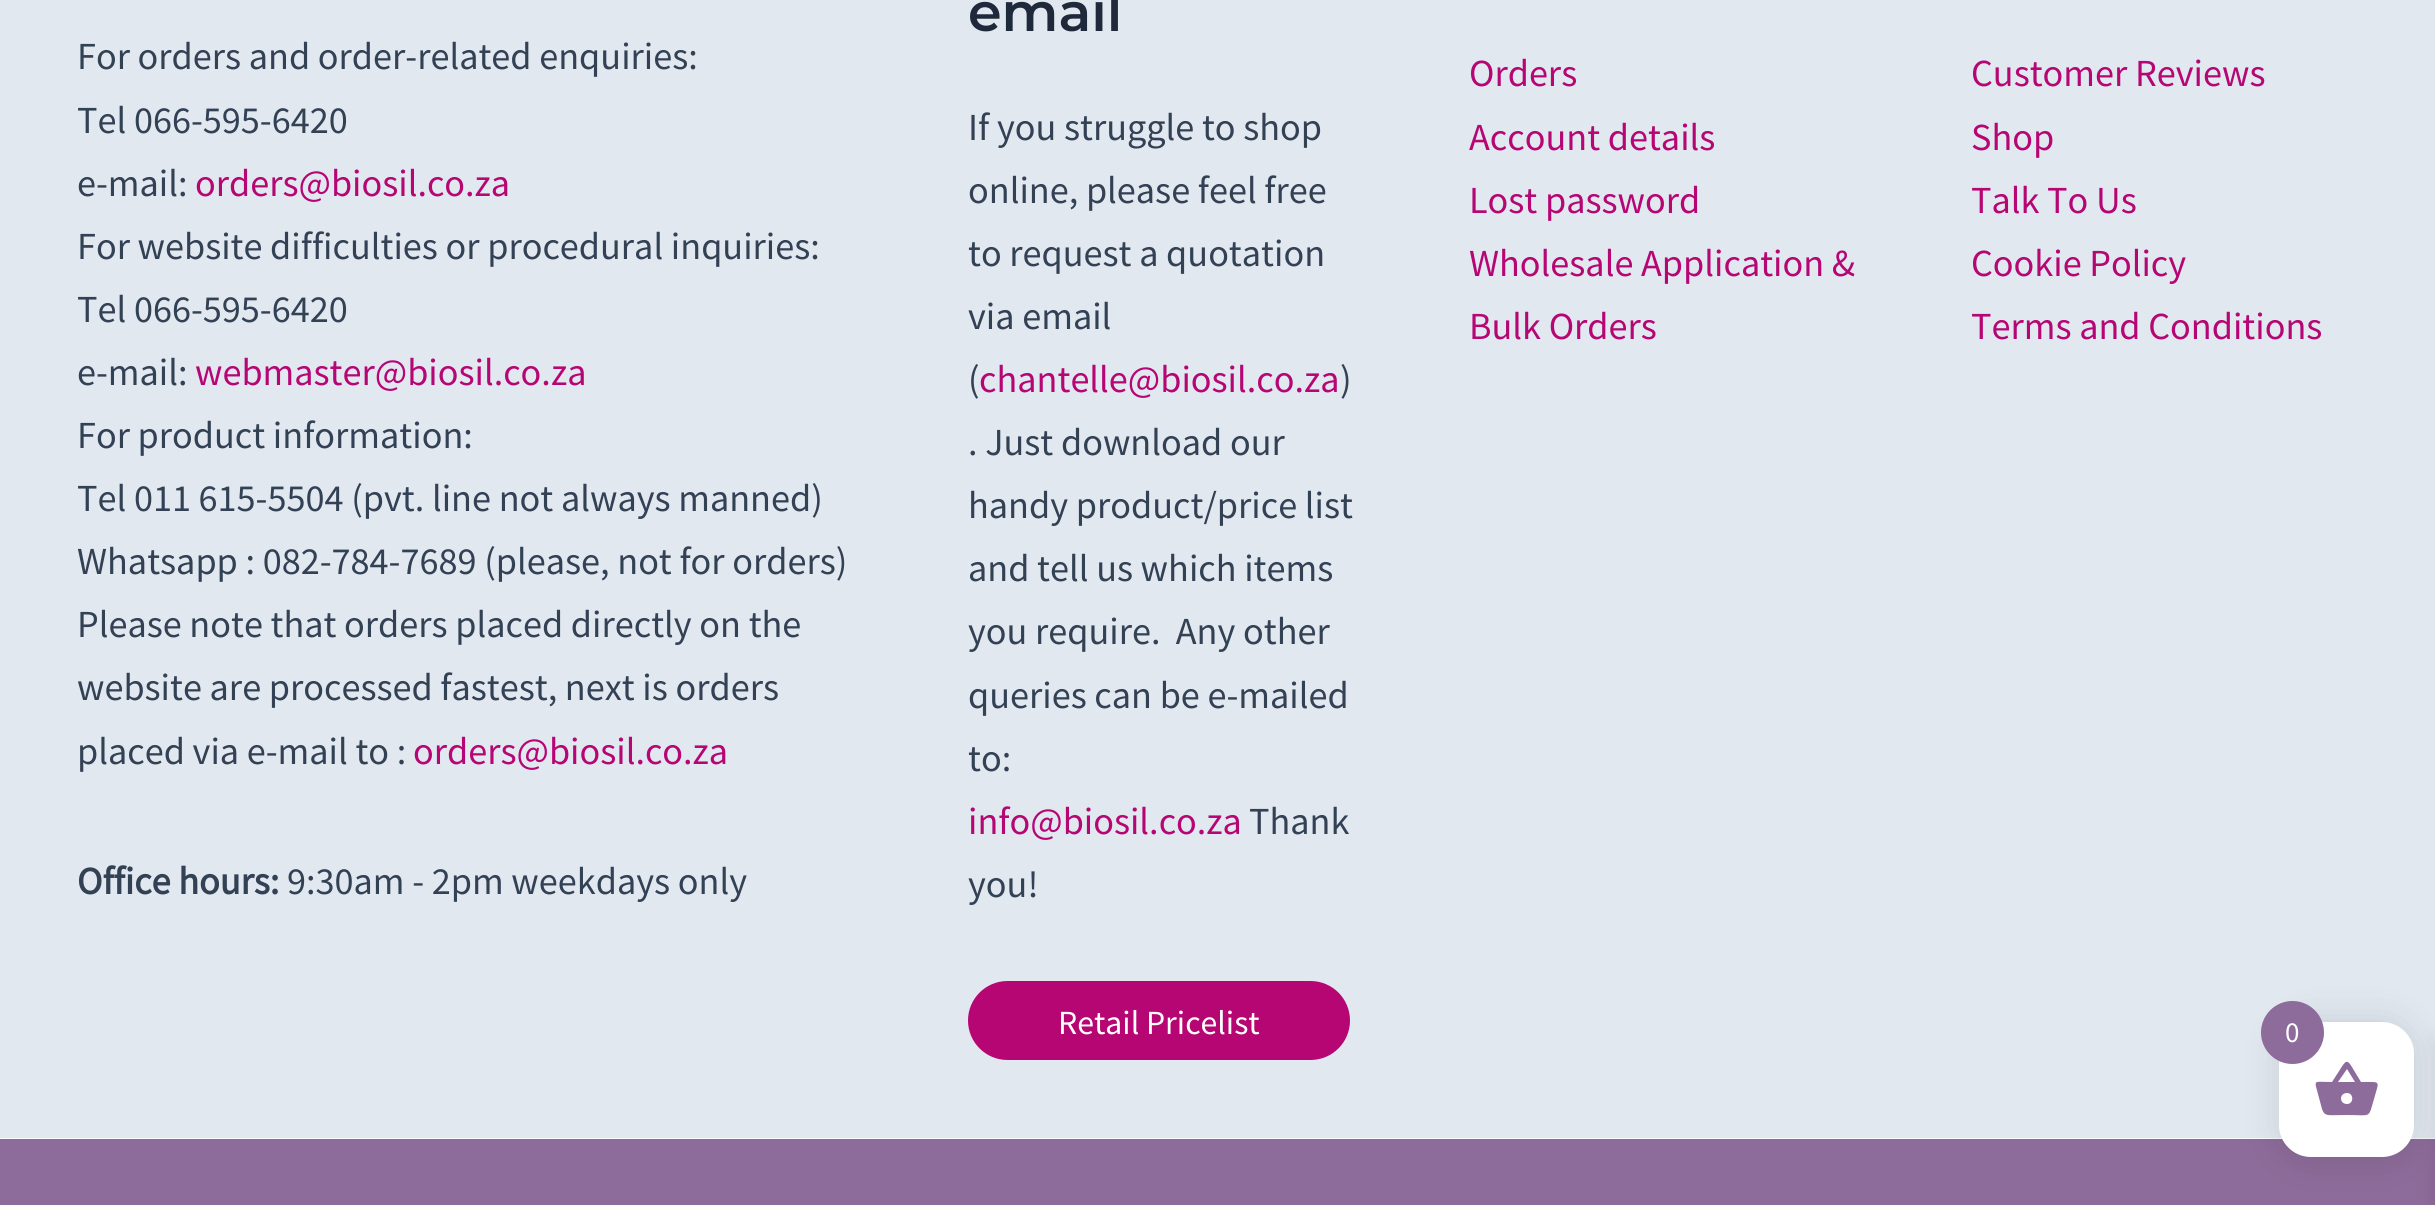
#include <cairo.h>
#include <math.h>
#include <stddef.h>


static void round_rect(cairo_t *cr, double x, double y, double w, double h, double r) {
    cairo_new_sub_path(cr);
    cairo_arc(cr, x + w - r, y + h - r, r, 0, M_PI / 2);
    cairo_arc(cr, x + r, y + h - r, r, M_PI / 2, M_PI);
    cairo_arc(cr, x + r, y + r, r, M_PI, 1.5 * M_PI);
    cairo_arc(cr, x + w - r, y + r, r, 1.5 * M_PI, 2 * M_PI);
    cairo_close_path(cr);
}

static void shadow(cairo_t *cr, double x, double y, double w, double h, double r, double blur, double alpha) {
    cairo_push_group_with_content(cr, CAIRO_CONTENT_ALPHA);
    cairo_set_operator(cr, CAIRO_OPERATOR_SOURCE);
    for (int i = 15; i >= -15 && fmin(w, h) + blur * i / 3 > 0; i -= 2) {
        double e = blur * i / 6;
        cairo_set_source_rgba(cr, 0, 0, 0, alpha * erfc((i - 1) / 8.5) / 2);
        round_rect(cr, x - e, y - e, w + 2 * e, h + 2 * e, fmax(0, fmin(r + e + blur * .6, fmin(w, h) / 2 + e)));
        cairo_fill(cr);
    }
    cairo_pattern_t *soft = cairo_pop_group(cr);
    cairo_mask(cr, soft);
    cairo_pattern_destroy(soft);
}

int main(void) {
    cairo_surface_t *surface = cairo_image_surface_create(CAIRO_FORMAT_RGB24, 2435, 1205);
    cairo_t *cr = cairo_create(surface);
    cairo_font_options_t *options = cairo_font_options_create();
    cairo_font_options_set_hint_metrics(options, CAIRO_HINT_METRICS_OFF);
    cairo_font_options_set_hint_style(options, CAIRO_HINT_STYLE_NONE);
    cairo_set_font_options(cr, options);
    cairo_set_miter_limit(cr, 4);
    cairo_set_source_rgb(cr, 0.976, 0.98, 0.984);
    cairo_paint(cr);
    cairo_set_source_rgb(cr, 0.886, 0.91, 0.941);
    cairo_rectangle(cr, 0, 0, 2435, 1138);
    cairo_fill(cr);
    cairo_select_font_face(cr, "Source Sans Pro", CAIRO_FONT_SLANT_NORMAL, CAIRO_FONT_WEIGHT_NORMAL);
    cairo_set_font_size(cr, 38.25);
    cairo_set_source_rgb(cr, 0.2, 0.255, 0.333);
    cairo_move_to(cr, 77, 69);
    cairo_show_text(cr, "For orders and order-related enquiries:");
    cairo_move_to(cr, 77, 133);
    cairo_show_text(cr, "Tel 066-595-6420");
    cairo_move_to(cr, 77, 196);
    cairo_show_text(cr, "e-mail:");
    cairo_set_source_rgb(cr, 0.714, 0.027, 0.455);
    cairo_move_to(cr, 195, 196);
    cairo_show_text(cr, "orders@biosil.co.za");
    cairo_set_source_rgb(cr, 0.2, 0.255, 0.333);
    cairo_move_to(cr, 77, 259);
    cairo_show_text(cr, "For website difficulties or procedural inquiries:");
    cairo_move_to(cr, 77, 322);
    cairo_show_text(cr, "Tel 066-595-6420");
    cairo_move_to(cr, 77, 385);
    cairo_show_text(cr, "e-mail:");
    cairo_set_source_rgb(cr, 0.714, 0.027, 0.455);
    cairo_move_to(cr, 195, 385);
    cairo_show_text(cr, "webmaster@biosil.co.za");
    cairo_set_source_rgb(cr, 0.2, 0.255, 0.333);
    cairo_move_to(cr, 77, 448);
    cairo_show_text(cr, "For product information:");
    cairo_move_to(cr, 77, 511);
    cairo_show_text(cr, "Tel 011 615-5504 (pvt. line not always manned)");
    cairo_move_to(cr, 77, 574);
    cairo_show_text(cr, "Whatsapp : 082-784-7689 (please, not for orders)");
    cairo_move_to(cr, 77, 637);
    cairo_show_text(cr, "Please note that orders placed directly on the");
    cairo_move_to(cr, 77, 700);
    cairo_show_text(cr, "website are processed fastest, next is orders");
    cairo_move_to(cr, 77, 764);
    cairo_show_text(cr, "placed via e-mail to :");
    cairo_set_source_rgb(cr, 0.714, 0.027, 0.455);
    cairo_move_to(cr, 413, 764);
    cairo_show_text(cr, "orders@biosil.co.za");
    cairo_select_font_face(cr, "Source Sans Pro", CAIRO_FONT_SLANT_NORMAL, CAIRO_FONT_WEIGHT_BOLD);
    cairo_set_source_rgb(cr, 0.2, 0.255, 0.333);
    cairo_move_to(cr, 77, 894);
    cairo_show_text(cr, "Office hours:");
    cairo_select_font_face(cr, "Source Sans Pro", CAIRO_FONT_SLANT_NORMAL, CAIRO_FONT_WEIGHT_NORMAL);
    cairo_move_to(cr, 287, 894);
    cairo_show_text(cr, "9:30am - 2pm weekdays only");
    cairo_select_font_face(cr, "Montserrat SemiBold", CAIRO_FONT_SLANT_NORMAL, CAIRO_FONT_WEIGHT_NORMAL);
    cairo_set_font_size(cr, 54);
    cairo_set_source_rgb(cr, 0.118, 0.161, 0.231);
    cairo_move_to(cr, 968, 31);
    cairo_show_text(cr, "email");
    cairo_select_font_face(cr, "Source Sans Pro", CAIRO_FONT_SLANT_NORMAL, CAIRO_FONT_WEIGHT_NORMAL);
    cairo_set_font_size(cr, 38.25);
    cairo_set_source_rgb(cr, 0.2, 0.255, 0.333);
    cairo_move_to(cr, 968, 140);
    cairo_show_text(cr, "If you struggle to shop");
    cairo_move_to(cr, 968, 203);
    cairo_show_text(cr, "online, please feel free");
    cairo_move_to(cr, 968, 266);
    cairo_show_text(cr, "to request a quotation");
    cairo_move_to(cr, 968, 329);
    cairo_show_text(cr, "via email");
    cairo_move_to(cr, 968, 392);
    cairo_show_text(cr, "(");
    cairo_set_source_rgb(cr, 0.714, 0.027, 0.455);
    cairo_move_to(cr, 979, 392);
    cairo_show_text(cr, "chantelle@biosil.co.za");
    cairo_set_source_rgb(cr, 0.2, 0.255, 0.333);
    cairo_move_to(cr, 1340, 392);
    cairo_show_text(cr, ")");
    cairo_move_to(cr, 968, 455);
    cairo_show_text(cr, ". Just download our");
    cairo_move_to(cr, 968, 518);
    cairo_show_text(cr, "handy product/price list");
    cairo_move_to(cr, 968, 581);
    cairo_show_text(cr, "and tell us which items");
    cairo_move_to(cr, 968, 644);
    cairo_show_text(cr, "you require.  Any other");
    cairo_move_to(cr, 968, 708);
    cairo_show_text(cr, "queries can be e-mailed");
    cairo_move_to(cr, 968, 771);
    cairo_show_text(cr, "to:");
    cairo_set_source_rgb(cr, 0.714, 0.027, 0.455);
    cairo_move_to(cr, 968, 834);
    cairo_show_text(cr, "info@biosil.co.za");
    cairo_set_source_rgb(cr, 0.2, 0.255, 0.333);
    cairo_move_to(cr, 1249, 834);
    cairo_show_text(cr, "Thank");
    cairo_move_to(cr, 968, 897);
    cairo_show_text(cr, "you!");
    cairo_set_source_rgb(cr, 0.714, 0.027, 0.455);
    round_rect(cr, 968, 981, 382, 79, 39.5);
    cairo_fill(cr);
    cairo_set_font_size(cr, 33.75);
    cairo_set_source_rgb(cr, 1, 1, 1);
    cairo_move_to(cr, 1058, 1034);
    cairo_show_text(cr, "Retail Pricelist");
    cairo_set_font_size(cr, 38.25);
    cairo_set_source_rgb(cr, 0.714, 0.027, 0.455);
    cairo_move_to(cr, 1469, 86);
    cairo_show_text(cr, "Orders");
    cairo_move_to(cr, 1469, 150);
    cairo_show_text(cr, "Account details");
    cairo_move_to(cr, 1469, 213);
    cairo_show_text(cr, "Lost password");
    cairo_move_to(cr, 1469, 276);
    cairo_show_text(cr, "Wholesale Application &");
    cairo_move_to(cr, 1469, 339);
    cairo_show_text(cr, "Bulk Orders");
    cairo_move_to(cr, 1971, 86);
    cairo_show_text(cr, "Customer Reviews");
    cairo_move_to(cr, 1971, 150);
    cairo_show_text(cr, "Shop");
    cairo_move_to(cr, 1971, 213);
    cairo_show_text(cr, "Talk To Us");
    cairo_move_to(cr, 1971, 276);
    cairo_show_text(cr, "Cookie Policy");
    cairo_move_to(cr, 1971, 339);
    cairo_show_text(cr, "Terms and Conditions");
    cairo_set_source_rgb(cr, 0.553, 0.42, 0.604);
    cairo_rectangle(cr, 0, 1139, 2435, 66);
    cairo_fill(cr);
    cairo_set_source_rgb(cr, 0, 0, 0);
    shadow(cr, 2275, 1017, 144, 144, 36, 17, 0.1);
    shadow(cr, 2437, 1042, 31, 162, 0, 11, 0.1);
    cairo_set_source_rgb(cr, 1, 1, 1);
    round_rect(cr, 2279, 1022, 135, 135, 32);
    cairo_fill(cr);
    cairo_set_source_rgb(cr, 0.553, 0.42, 0.604);
    cairo_new_path(cr);
    cairo_move_to(cr, 2347, 1104);
    cairo_curve_to(cr, 2354, 1104, 2354, 1093, 2347, 1093);
    cairo_curve_to(cr, 2339, 1093, 2339, 1104, 2347, 1104);
    cairo_close_path(cr);
    cairo_move_to(cr, 2338, 1082);
    cairo_line_to(cr, 2355, 1082);
    cairo_line_to(cr, 2347, 1069);
    cairo_close_path(cr);
    cairo_move_to(cr, 2361, 1082);
    cairo_curve_to(cr, 2382, 1082, 2379, 1080, 2374, 1099);
    cairo_curve_to(cr, 2368, 1119, 2372, 1115, 2347, 1115);
    cairo_curve_to(cr, 2320, 1115, 2325, 1119, 2318, 1094);
    cairo_curve_to(cr, 2314, 1079, 2313, 1082, 2332, 1082);
    cairo_curve_to(cr, 2350, 1055, 2344, 1055, 2361, 1082);
    cairo_close_path(cr);
    cairo_fill(cr);
    cairo_arc(cr, 2292.5, 1032.5, 31.5, 0, 2 * M_PI);
    cairo_fill(cr);
    cairo_set_font_size(cr, 29);
    cairo_set_source_rgb(cr, 1, 1, 1);
    cairo_move_to(cr, 2285, 1042);
    cairo_show_text(cr, "0");
    cairo_surface_write_to_png(surface, "page.png");
    cairo_font_options_destroy(options);
    cairo_destroy(cr);
    cairo_surface_destroy(surface);
    return 0;
}
